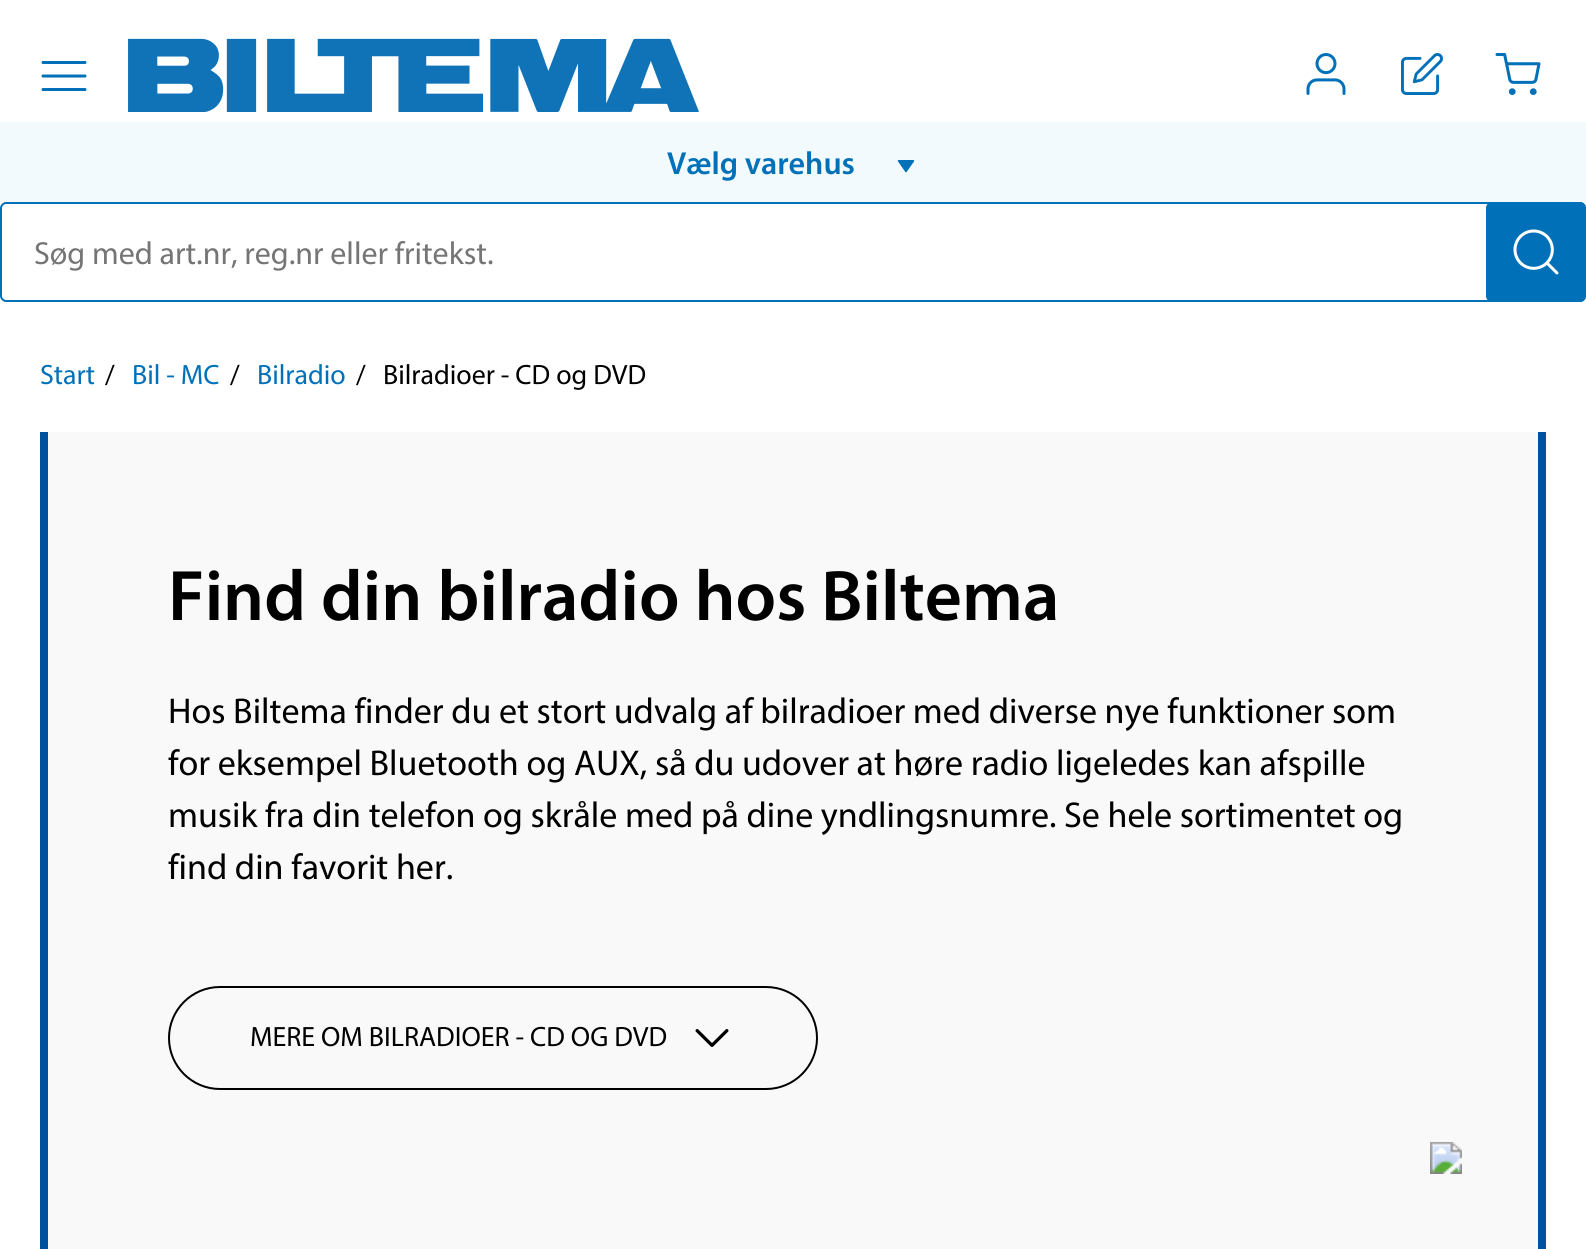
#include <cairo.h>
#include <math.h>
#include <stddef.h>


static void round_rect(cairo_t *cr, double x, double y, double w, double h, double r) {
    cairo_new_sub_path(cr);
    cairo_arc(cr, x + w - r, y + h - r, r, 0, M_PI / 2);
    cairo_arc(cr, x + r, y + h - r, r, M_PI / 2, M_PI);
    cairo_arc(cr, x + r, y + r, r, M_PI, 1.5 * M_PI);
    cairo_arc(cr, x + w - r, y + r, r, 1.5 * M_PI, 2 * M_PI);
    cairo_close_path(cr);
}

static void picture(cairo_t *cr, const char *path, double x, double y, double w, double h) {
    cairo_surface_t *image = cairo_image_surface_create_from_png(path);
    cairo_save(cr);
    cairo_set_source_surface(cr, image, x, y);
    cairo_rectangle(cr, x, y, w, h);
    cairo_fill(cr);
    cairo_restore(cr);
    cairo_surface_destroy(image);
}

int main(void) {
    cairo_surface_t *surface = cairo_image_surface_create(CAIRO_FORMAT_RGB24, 1586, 1249);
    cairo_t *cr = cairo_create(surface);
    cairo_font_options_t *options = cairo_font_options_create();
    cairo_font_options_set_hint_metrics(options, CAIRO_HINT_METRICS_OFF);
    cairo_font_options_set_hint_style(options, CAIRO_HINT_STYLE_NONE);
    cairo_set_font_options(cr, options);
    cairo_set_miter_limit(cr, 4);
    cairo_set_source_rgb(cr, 1, 1, 1);
    cairo_paint(cr);
    picture(cr, "img1.png", 41, 61, 46, 30);
    picture(cr, "img2.png", 128, 38, 571, 74);
    picture(cr, "img3.png", 1306, 53, 40, 42);
    picture(cr, "img4.png", 1401, 53, 42, 42);
    picture(cr, "img5.png", 1495, 53, 46, 42);
    cairo_set_source_rgb(cr, 0.953, 0.98, 0.996);
    cairo_rectangle(cr, 0, 122, 1586, 80);
    cairo_fill(cr);
    cairo_select_font_face(cr, "Myriad SemiBold", CAIRO_FONT_SLANT_NORMAL, CAIRO_FONT_WEIGHT_NORMAL);
    cairo_set_font_size(cr, 32);
    cairo_set_source_rgb(cr, 0, 0.443, 0.725);
    cairo_move_to(cr, 667, 174);
    cairo_show_text(cr, "Vælg varehus");
    picture(cr, "img6.png", 897, 160, 18, 13);
    cairo_set_fill_rule(cr, CAIRO_FILL_RULE_EVEN_ODD);
    cairo_new_path(cr);
    cairo_move_to(cr, 6, 202);
    cairo_line_to(cr, 1580, 202);
    cairo_curve_to(cr, 1583, 202, 1586, 205, 1586, 208);
    cairo_line_to(cr, 1586, 296);
    cairo_curve_to(cr, 1586, 299, 1583, 302, 1580, 302);
    cairo_line_to(cr, 6, 302);
    cairo_curve_to(cr, 3, 302, 0, 299, 0, 296);
    cairo_line_to(cr, 0, 208);
    cairo_curve_to(cr, 0, 205, 3, 202, 6, 202);
    cairo_close_path(cr);
    cairo_move_to(cr, 6, 204);
    cairo_line_to(cr, 1580, 204);
    cairo_curve_to(cr, 1583, 204, 1586, 206, 1586, 208);
    cairo_line_to(cr, 1586, 296);
    cairo_curve_to(cr, 1586, 298, 1583, 300, 1580, 300);
    cairo_line_to(cr, 6, 300);
    cairo_curve_to(cr, 4, 300, 2, 298, 2, 296);
    cairo_line_to(cr, 2, 208);
    cairo_curve_to(cr, 2, 206, 4, 204, 6, 204);
    cairo_close_path(cr);
    cairo_fill(cr);
    cairo_select_font_face(cr, "Myriad", CAIRO_FONT_SLANT_NORMAL, CAIRO_FONT_WEIGHT_NORMAL);
    cairo_set_source_rgb(cr, 0.459, 0.459, 0.459);
    cairo_move_to(cr, 34, 264);
    cairo_show_text(cr, "Søg med art.nr, reg.nr eller fritekst.");
    cairo_set_source_rgb(cr, 0, 0.443, 0.725);
    round_rect(cr, 1486, 202, 100, 100, 6);
    cairo_fill(cr);
    picture(cr, "img7.png", 1513, 229, 46, 46);
    cairo_set_font_size(cr, 28);
    cairo_move_to(cr, 40, 384);
    cairo_show_text(cr, "Start");
    cairo_set_source_rgb(cr, 0, 0, 0);
    cairo_move_to(cr, 105, 384);
    cairo_show_text(cr, "/");
    cairo_set_source_rgb(cr, 0, 0.443, 0.725);
    cairo_move_to(cr, 132, 384);
    cairo_show_text(cr, "Bil - MC");
    cairo_set_source_rgb(cr, 0, 0, 0);
    cairo_move_to(cr, 230, 384);
    cairo_show_text(cr, "/");
    cairo_set_source_rgb(cr, 0, 0.443, 0.725);
    cairo_move_to(cr, 257, 384);
    cairo_show_text(cr, "Bilradio");
    cairo_set_source_rgb(cr, 0, 0, 0);
    cairo_move_to(cr, 356, 384);
    cairo_show_text(cr, "/");
    cairo_move_to(cr, 383, 384);
    cairo_show_text(cr, "Bilradioer - CD og DVD");
    cairo_set_source_rgb(cr, 0.973, 0.973, 0.973);
    cairo_rectangle(cr, 48, 432, 1490, 817);
    cairo_fill(cr);
    cairo_set_source_rgb(cr, 0, 0.318, 0.62);
    cairo_rectangle(cr, 1538, 432, 8, 817);
    cairo_fill(cr);
    cairo_rectangle(cr, 40, 432, 8, 817);
    cairo_fill(cr);
    cairo_select_font_face(cr, "Myriad SemiBold", CAIRO_FONT_SLANT_NORMAL, CAIRO_FONT_WEIGHT_NORMAL);
    cairo_set_font_size(cr, 72);
    cairo_set_source_rgb(cr, 0, 0, 0);
    cairo_move_to(cr, 168, 620);
    cairo_show_text(cr, "Find din bilradio hos Biltema");
    cairo_select_font_face(cr, "Myriad", CAIRO_FONT_SLANT_NORMAL, CAIRO_FONT_WEIGHT_NORMAL);
    cairo_set_font_size(cr, 36);
    cairo_move_to(cr, 168, 723);
    cairo_show_text(cr, "Hos Biltema finder du et stort udvalg af bilradioer med diverse nye funktioner som");
    cairo_move_to(cr, 168, 775);
    cairo_show_text(cr, "for eksempel Bluetooth og AUX, så du udover at høre radio ligeledes kan afspille");
    cairo_move_to(cr, 168, 827);
    cairo_show_text(cr, "musik fra din telefon og skråle med på dine yndlingsnumre. Se hele sortimentet og");
    cairo_move_to(cr, 168, 879);
    cairo_show_text(cr, "find din favorit her.");
    round_rect(cr, 169, 987, 648, 102, 51);
    cairo_stroke(cr);
    cairo_set_font_size(cr, 28);
    cairo_move_to(cr, 250, 1046);
    cairo_show_text(cr, "MERE OM BILRADIOER - CD OG DVD");
    picture(cr, "img8.png", 695, 1029, 34, 18);
    picture(cr, "img9.png", 1430, 1142, 32, 32);
    cairo_surface_write_to_png(surface, "page.png");
    cairo_font_options_destroy(options);
    cairo_destroy(cr);
    cairo_surface_destroy(surface);
    return 0;
}
